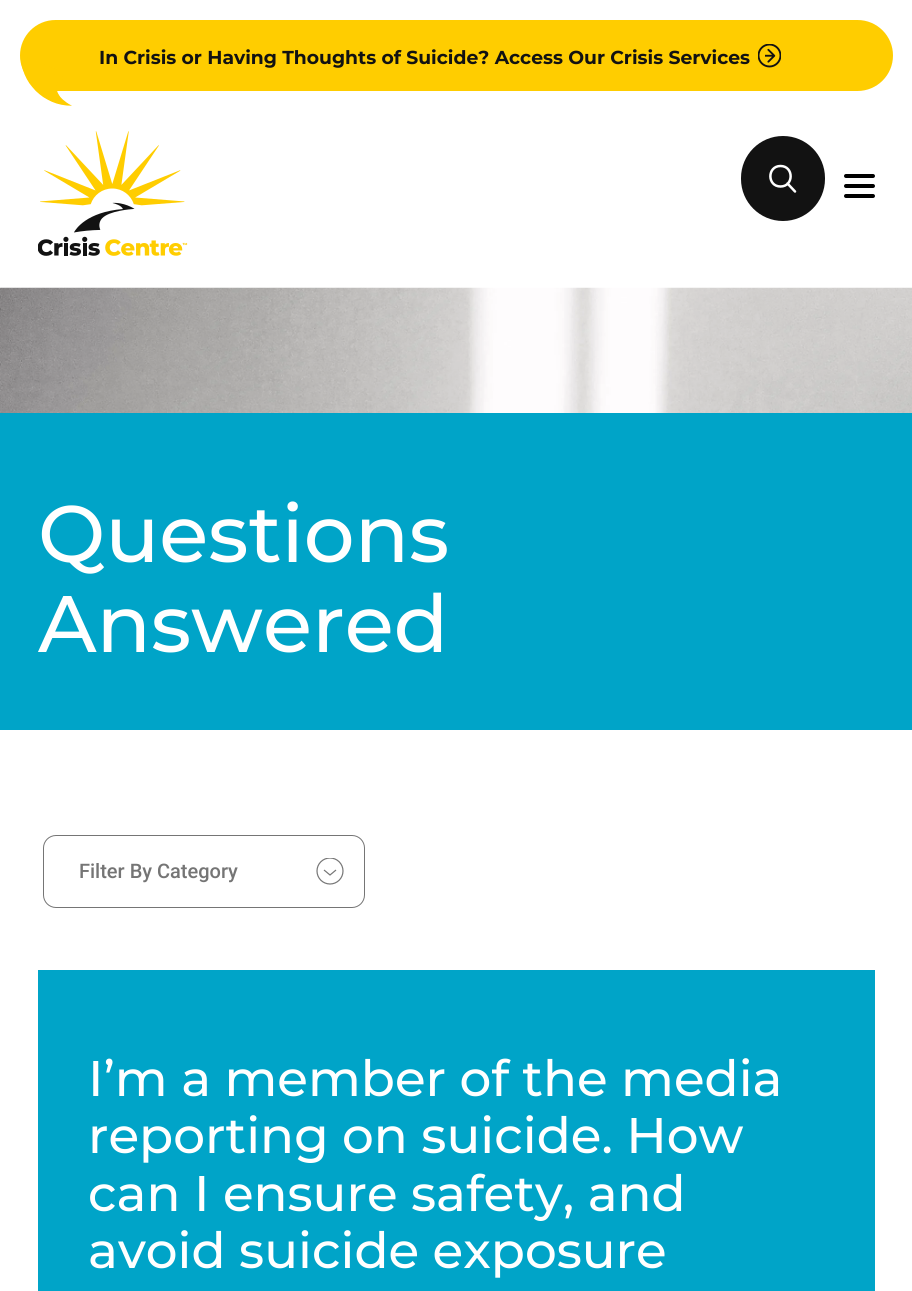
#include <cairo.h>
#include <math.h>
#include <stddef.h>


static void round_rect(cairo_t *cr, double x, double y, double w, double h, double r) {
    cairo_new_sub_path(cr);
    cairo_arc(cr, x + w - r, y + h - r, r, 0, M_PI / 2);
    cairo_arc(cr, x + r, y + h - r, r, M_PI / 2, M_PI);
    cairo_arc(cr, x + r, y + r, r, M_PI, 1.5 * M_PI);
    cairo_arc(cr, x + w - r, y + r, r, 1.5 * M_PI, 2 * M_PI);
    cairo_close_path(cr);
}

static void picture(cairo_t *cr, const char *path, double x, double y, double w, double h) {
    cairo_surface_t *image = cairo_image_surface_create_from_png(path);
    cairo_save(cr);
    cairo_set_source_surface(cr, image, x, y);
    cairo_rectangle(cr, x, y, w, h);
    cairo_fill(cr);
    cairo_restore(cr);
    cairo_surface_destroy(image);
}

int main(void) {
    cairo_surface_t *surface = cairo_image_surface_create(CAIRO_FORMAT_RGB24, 912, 1291);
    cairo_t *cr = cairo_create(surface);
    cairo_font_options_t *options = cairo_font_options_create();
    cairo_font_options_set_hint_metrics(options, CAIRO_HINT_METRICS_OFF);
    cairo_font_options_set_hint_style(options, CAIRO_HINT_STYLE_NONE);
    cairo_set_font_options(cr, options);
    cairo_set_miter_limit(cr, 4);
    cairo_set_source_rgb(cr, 1, 1, 1);
    cairo_paint(cr);
    cairo_set_source_rgb(cr, 1, 0.804, 0);
    round_rect(cr, 20, 20, 873, 71, 35.5);
    cairo_fill(cr);
    picture(cr, "img1.png", 20, 57, 52, 49);
    cairo_select_font_face(cr, "Montserrat", CAIRO_FONT_SLANT_NORMAL, CAIRO_FONT_WEIGHT_BOLD);
    cairo_set_font_size(cr, 18.75);
    cairo_set_source_rgb(cr, 0.071, 0.071, 0.071);
    cairo_move_to(cr, 99, 64);
    cairo_show_text(cr, "In Crisis or Having Thoughts of Suicide? Access Our Crisis Services");
    picture(cr, "img2.png", 758, 44, 23, 24);
    picture(cr, "img3.png", 38, 131, 150, 125);
    round_rect(cr, 741, 136, 84, 85, 42);
    cairo_fill(cr);
    cairo_new_path(cr);
    cairo_move_to(cr, 780.5, 186.5);
    cairo_curve_to(cr, 794, 186.5, 794, 166, 780.5, 166);
    cairo_curve_to(cr, 767, 166, 767, 186.5, 780.5, 186.5);
    cairo_close_path(cr);
    cairo_move_to(cr, 795, 191.5);
    cairo_line_to(cr, 787.5, 183.5);
    cairo_set_source_rgb(cr, 1, 1, 1);
    cairo_set_line_width(cr, 2.5);
    cairo_set_line_cap(cr, CAIRO_LINE_CAP_ROUND);
    cairo_set_line_join(cr, CAIRO_LINE_JOIN_ROUND);
    cairo_stroke(cr);
    cairo_set_source_rgb(cr, 0, 0, 0);
    round_rect(cr, 844, 174, 31, 4, 2);
    cairo_fill(cr);
    round_rect(cr, 844, 184, 31, 4, 2);
    cairo_fill(cr);
    round_rect(cr, 844, 194, 31, 4, 2);
    cairo_fill(cr);
    picture(cr, "img4.png", 0, 287, 912, 126);
    cairo_set_source_rgb(cr, 0, 0.643, 0.784);
    cairo_rectangle(cr, 0, 413, 912, 317);
    cairo_fill(cr);
    cairo_select_font_face(cr, "Montserrat Medium", CAIRO_FONT_SLANT_NORMAL, CAIRO_FONT_WEIGHT_NORMAL);
    cairo_set_font_size(cr, 80);
    cairo_set_source_rgb(cr, 1, 1, 1);
    cairo_move_to(cr, 38, 562);
    cairo_show_text(cr, "Questions");
    cairo_move_to(cr, 38, 652);
    cairo_show_text(cr, "Answered");
    cairo_save(cr);
    cairo_rectangle(cr, 316, 858, 28, 27);
    cairo_clip(cr);
    cairo_arc(cr, 330, 871, 13, 0, 2 * M_PI);
    cairo_set_source_rgb(cr, 0.459, 0.459, 0.459);
    cairo_set_line_width(cr, 1.2);
    cairo_set_line_cap(cr, CAIRO_LINE_CAP_BUTT);
    cairo_set_line_join(cr, CAIRO_LINE_JOIN_MITER);
    cairo_stroke(cr);
    cairo_restore(cr);
    cairo_new_path(cr);
    cairo_move_to(cr, 324, 870);
    cairo_line_to(cr, 330, 875);
    cairo_line_to(cr, 336, 870);
    cairo_set_source_rgb(cr, 0.459, 0.459, 0.459);
    cairo_set_line_width(cr, 1.2);
    cairo_set_line_cap(cr, CAIRO_LINE_CAP_BUTT);
    cairo_set_line_join(cr, CAIRO_LINE_JOIN_MITER);
    cairo_stroke(cr);
    round_rect(cr, 43.5, 835.5, 321, 72, 12.5);
    cairo_set_line_width(cr, 1);
    cairo_stroke(cr);
    cairo_select_font_face(cr, "Roboto Medium", CAIRO_FONT_SLANT_NORMAL, CAIRO_FONT_WEIGHT_NORMAL);
    cairo_set_font_size(cr, 20);
    cairo_move_to(cr, 79, 878);
    cairo_show_text(cr, "Filter By Category");
    cairo_set_source_rgb(cr, 0, 0.643, 0.784);
    cairo_rectangle(cr, 38, 970, 837, 321);
    cairo_fill(cr);
    cairo_select_font_face(cr, "Montserrat Medium", CAIRO_FONT_SLANT_NORMAL, CAIRO_FONT_WEIGHT_NORMAL);
    cairo_set_font_size(cr, 50);
    cairo_set_source_rgb(cr, 1, 1, 1);
    cairo_move_to(cr, 88, 1096);
    cairo_show_text(cr, "I’m a member of the media");
    cairo_move_to(cr, 88, 1153);
    cairo_show_text(cr, "reporting on suicide. How");
    cairo_move_to(cr, 88, 1211);
    cairo_show_text(cr, "can I ensure safety, and");
    cairo_move_to(cr, 88, 1268);
    cairo_show_text(cr, "avoid suicide exposure");
    cairo_surface_write_to_png(surface, "page.png");
    cairo_font_options_destroy(options);
    cairo_destroy(cr);
    cairo_surface_destroy(surface);
    return 0;
}
